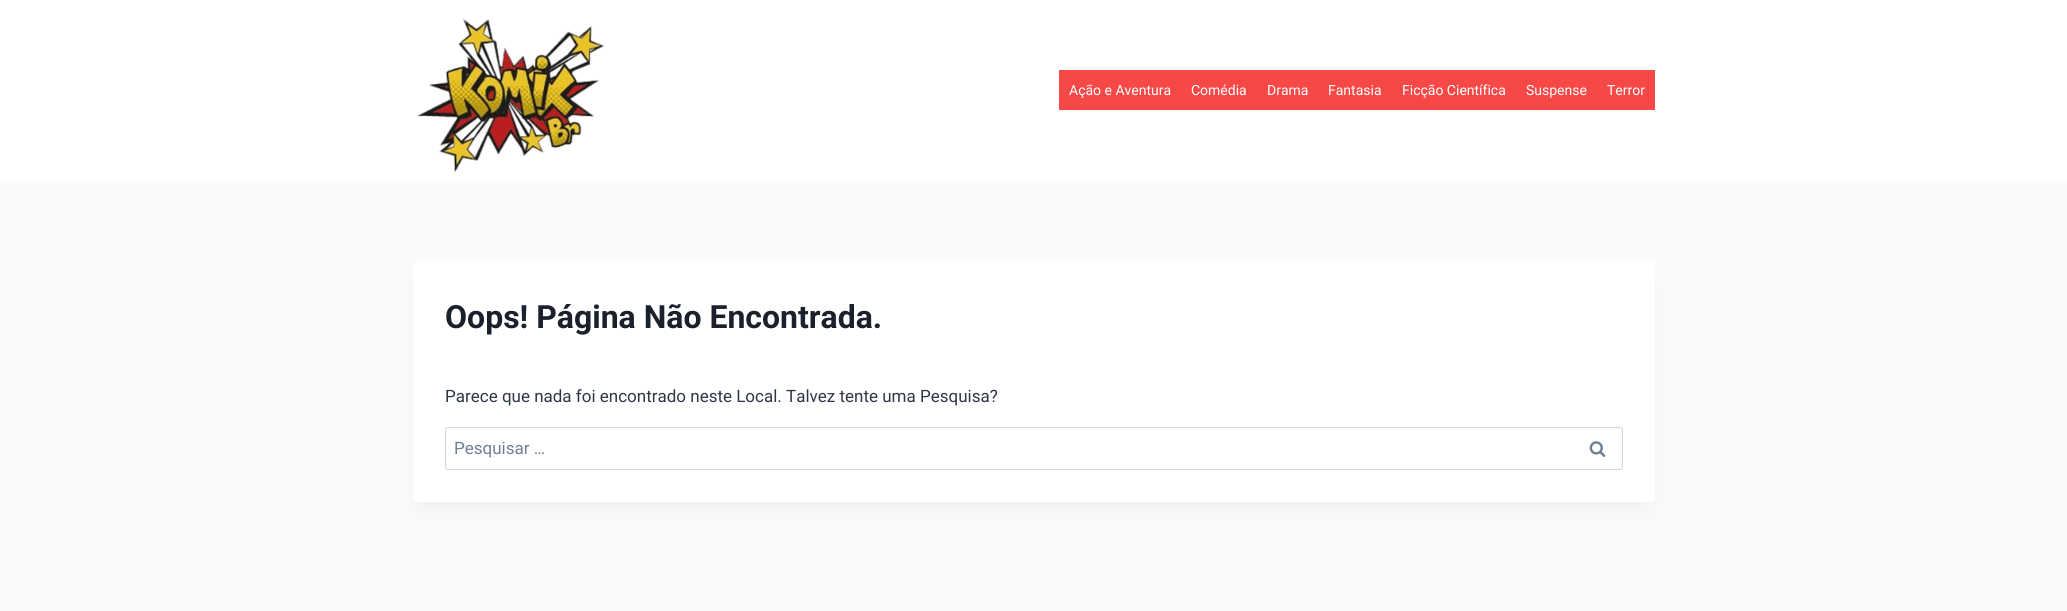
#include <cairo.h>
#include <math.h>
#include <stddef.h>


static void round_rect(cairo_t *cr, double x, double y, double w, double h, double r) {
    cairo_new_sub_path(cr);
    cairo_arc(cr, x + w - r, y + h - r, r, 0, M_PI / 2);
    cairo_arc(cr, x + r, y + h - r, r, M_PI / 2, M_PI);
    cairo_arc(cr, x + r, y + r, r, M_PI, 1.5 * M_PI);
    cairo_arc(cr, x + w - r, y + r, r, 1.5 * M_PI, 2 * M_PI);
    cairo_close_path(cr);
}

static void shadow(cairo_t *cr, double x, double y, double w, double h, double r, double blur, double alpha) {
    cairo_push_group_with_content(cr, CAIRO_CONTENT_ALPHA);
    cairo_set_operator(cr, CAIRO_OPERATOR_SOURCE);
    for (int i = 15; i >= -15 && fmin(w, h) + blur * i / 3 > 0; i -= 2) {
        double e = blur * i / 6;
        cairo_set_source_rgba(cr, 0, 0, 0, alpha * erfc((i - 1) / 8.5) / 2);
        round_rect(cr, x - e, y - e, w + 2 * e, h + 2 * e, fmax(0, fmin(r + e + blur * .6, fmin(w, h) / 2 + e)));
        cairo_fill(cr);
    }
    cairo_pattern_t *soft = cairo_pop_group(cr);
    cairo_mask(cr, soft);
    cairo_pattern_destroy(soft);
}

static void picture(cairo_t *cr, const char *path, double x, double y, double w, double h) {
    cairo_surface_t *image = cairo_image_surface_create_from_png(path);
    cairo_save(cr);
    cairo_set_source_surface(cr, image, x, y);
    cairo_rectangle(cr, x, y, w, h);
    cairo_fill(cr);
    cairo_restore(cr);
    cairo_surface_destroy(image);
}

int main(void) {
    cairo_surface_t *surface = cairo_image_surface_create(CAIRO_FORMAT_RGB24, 2067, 611);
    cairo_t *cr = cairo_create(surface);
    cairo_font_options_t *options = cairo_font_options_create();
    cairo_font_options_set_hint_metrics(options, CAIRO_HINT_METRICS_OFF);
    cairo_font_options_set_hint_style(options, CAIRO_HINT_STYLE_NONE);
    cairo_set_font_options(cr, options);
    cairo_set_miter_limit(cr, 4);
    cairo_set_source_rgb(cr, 0.969, 0.98, 0.988);
    cairo_paint(cr);
    cairo_set_source_rgb(cr, 1, 1, 1);
    cairo_rectangle(cr, 0, 0, 2067, 181);
    cairo_fill(cr);
    picture(cr, "img1.png", 417, 18, 188, 155);
    cairo_set_source_rgb(cr, 0.965, 0.282, 0.282);
    cairo_rectangle(cr, 1059, 70, 596, 40);
    cairo_fill(cr);
    cairo_select_font_face(cr, "Roboto", CAIRO_FONT_SLANT_NORMAL, CAIRO_FONT_WEIGHT_NORMAL);
    cairo_set_font_size(cr, 14);
    cairo_set_source_rgb(cr, 1, 1, 1);
    cairo_move_to(cr, 1069, 95);
    cairo_show_text(cr, "Ação e Aventura");
    cairo_move_to(cr, 1191, 95);
    cairo_show_text(cr, "Comédia");
    cairo_move_to(cr, 1267, 95);
    cairo_show_text(cr, "Drama");
    cairo_move_to(cr, 1328, 95);
    cairo_show_text(cr, "Fantasia");
    cairo_move_to(cr, 1402, 95);
    cairo_show_text(cr, "Ficção Científica");
    cairo_move_to(cr, 1526, 95);
    cairo_show_text(cr, "Suspense");
    cairo_move_to(cr, 1607, 95);
    cairo_show_text(cr, "Terror");
    cairo_set_source_rgb(cr, 0, 0, 0);
    shadow(cr, 423, 286, 1222, 221, 0, 12.5, 0.05);
    cairo_set_source_rgb(cr, 1, 1, 1);
    round_rect(cr, 413, 261, 1242, 241, 4);
    cairo_fill(cr);
    cairo_select_font_face(cr, "Roboto", CAIRO_FONT_SLANT_NORMAL, CAIRO_FONT_WEIGHT_BOLD);
    cairo_set_font_size(cr, 32);
    cairo_set_source_rgb(cr, 0.102, 0.125, 0.173);
    cairo_move_to(cr, 445, 328);
    cairo_show_text(cr, "Oops! Página Não Encontrada.");
    cairo_select_font_face(cr, "Roboto", CAIRO_FONT_SLANT_NORMAL, CAIRO_FONT_WEIGHT_NORMAL);
    cairo_set_font_size(cr, 17);
    cairo_set_source_rgb(cr, 0.176, 0.216, 0.282);
    cairo_move_to(cr, 445, 402);
    cairo_show_text(cr, "Parece que nada foi encontrado neste Local. Talvez tente uma Pesquisa?");
    round_rect(cr, 445.5, 427.5, 1177, 42, 2.5);
    cairo_set_source_rgb(cr, 0.796, 0.835, 0.878);
    cairo_set_line_width(cr, 1);
    cairo_stroke(cr);
    cairo_set_source_rgb(cr, 0.443, 0.502, 0.588);
    cairo_move_to(cr, 454, 454);
    cairo_show_text(cr, "Pesquisar …");
    picture(cr, "img2.png", 1589, 441, 17, 16);
    cairo_surface_write_to_png(surface, "page.png");
    cairo_font_options_destroy(options);
    cairo_destroy(cr);
    cairo_surface_destroy(surface);
    return 0;
}
